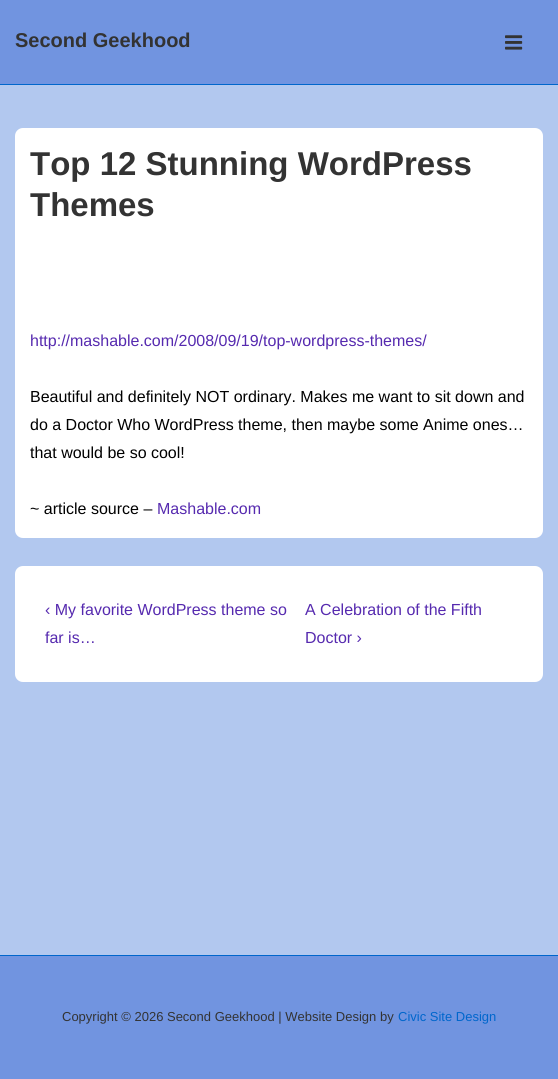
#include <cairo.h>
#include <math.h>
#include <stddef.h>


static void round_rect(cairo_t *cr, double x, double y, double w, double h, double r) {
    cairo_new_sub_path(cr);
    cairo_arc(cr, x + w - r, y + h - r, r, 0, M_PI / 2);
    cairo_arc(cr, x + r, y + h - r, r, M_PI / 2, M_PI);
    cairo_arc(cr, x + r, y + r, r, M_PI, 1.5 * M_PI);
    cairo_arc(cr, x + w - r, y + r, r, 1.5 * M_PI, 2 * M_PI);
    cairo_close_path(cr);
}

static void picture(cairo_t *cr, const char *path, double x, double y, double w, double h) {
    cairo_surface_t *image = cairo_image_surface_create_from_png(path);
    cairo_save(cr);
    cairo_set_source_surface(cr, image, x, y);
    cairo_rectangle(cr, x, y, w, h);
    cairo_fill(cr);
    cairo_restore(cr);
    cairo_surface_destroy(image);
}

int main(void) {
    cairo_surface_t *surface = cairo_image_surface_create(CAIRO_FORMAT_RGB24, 558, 1079);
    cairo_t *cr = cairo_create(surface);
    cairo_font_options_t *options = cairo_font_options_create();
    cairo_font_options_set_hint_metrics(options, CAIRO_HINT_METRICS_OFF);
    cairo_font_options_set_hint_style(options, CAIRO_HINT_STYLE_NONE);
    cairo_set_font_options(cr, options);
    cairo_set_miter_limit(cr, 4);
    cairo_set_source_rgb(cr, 0.698, 0.784, 0.937);
    cairo_paint(cr);
    cairo_set_source_rgb(cr, 0.443, 0.58, 0.878);
    cairo_rectangle(cr, 0, 0, 558, 84);
    cairo_fill(cr);
    cairo_set_source_rgb(cr, 0, 0.4, 0.8);
    cairo_rectangle(cr, 0, 84, 558, 1);
    cairo_fill(cr);
    cairo_select_font_face(cr, "Liberation Sans", CAIRO_FONT_SLANT_NORMAL, CAIRO_FONT_WEIGHT_BOLD);
    cairo_set_font_size(cr, 20);
    cairo_set_source_rgb(cr, 0.2, 0.2, 0.2);
    cairo_move_to(cr, 15, 47);
    cairo_show_text(cr, "Second Geekhood");
    picture(cr, "img1.png", 505, 35, 18, 15);
    cairo_set_source_rgb(cr, 1, 1, 1);
    round_rect(cr, 15, 128, 528, 410, 8);
    cairo_fill(cr);
    cairo_set_font_size(cr, 33);
    cairo_set_source_rgb(cr, 0.2, 0.2, 0.2);
    cairo_move_to(cr, 30, 175);
    cairo_show_text(cr, "Top 12 Stunning WordPress");
    cairo_move_to(cr, 30, 216);
    cairo_show_text(cr, "Themes");
    cairo_select_font_face(cr, "Liberation Sans", CAIRO_FONT_SLANT_NORMAL, CAIRO_FONT_WEIGHT_NORMAL);
    cairo_set_font_size(cr, 16);
    cairo_set_source_rgb(cr, 0.337, 0.165, 0.686);
    cairo_move_to(cr, 30, 346);
    cairo_show_text(cr, "http://mashable.com/2008/09/19/top-wordpress-themes/");
    cairo_set_source_rgb(cr, 0, 0, 0);
    cairo_move_to(cr, 30, 402);
    cairo_show_text(cr, "Beautiful and definitely NOT ordinary. Makes me want to sit down and");
    cairo_move_to(cr, 30, 430);
    cairo_show_text(cr, "do a Doctor Who WordPress theme, then maybe some Anime ones…");
    cairo_move_to(cr, 30, 458);
    cairo_show_text(cr, "that would be so cool!");
    cairo_move_to(cr, 30, 514);
    cairo_show_text(cr, "~ article source –");
    cairo_set_source_rgb(cr, 0.337, 0.165, 0.686);
    cairo_move_to(cr, 157, 514);
    cairo_show_text(cr, "Mashable.com");
    cairo_set_source_rgb(cr, 1, 1, 1);
    round_rect(cr, 15, 566, 528, 116, 8);
    cairo_fill(cr);
    cairo_set_source_rgb(cr, 0.337, 0.165, 0.686);
    cairo_move_to(cr, 45, 615);
    cairo_show_text(cr, "‹ My favorite WordPress theme so");
    cairo_move_to(cr, 45, 643);
    cairo_show_text(cr, "far is…");
    cairo_move_to(cr, 305, 615);
    cairo_show_text(cr, "A Celebration of the Fifth");
    cairo_move_to(cr, 305, 643);
    cairo_show_text(cr, "Doctor ›");
    cairo_set_source_rgb(cr, 0.443, 0.58, 0.878);
    cairo_rectangle(cr, 0, 956, 558, 123);
    cairo_fill(cr);
    cairo_set_source_rgb(cr, 0, 0.4, 0.8);
    cairo_rectangle(cr, 0, 955, 558, 1);
    cairo_fill(cr);
    cairo_set_font_size(cr, 13);
    cairo_set_source_rgb(cr, 0.2, 0.2, 0.2);
    cairo_move_to(cr, 62, 1021);
    cairo_show_text(cr, "Copyright © 2026 Second Geekhood | Website Design by");
    cairo_set_source_rgb(cr, 0, 0.4, 0.8);
    cairo_move_to(cr, 398, 1021);
    cairo_show_text(cr, "Civic Site Design");
    cairo_surface_write_to_png(surface, "page.png");
    cairo_font_options_destroy(options);
    cairo_destroy(cr);
    cairo_surface_destroy(surface);
    return 0;
}
